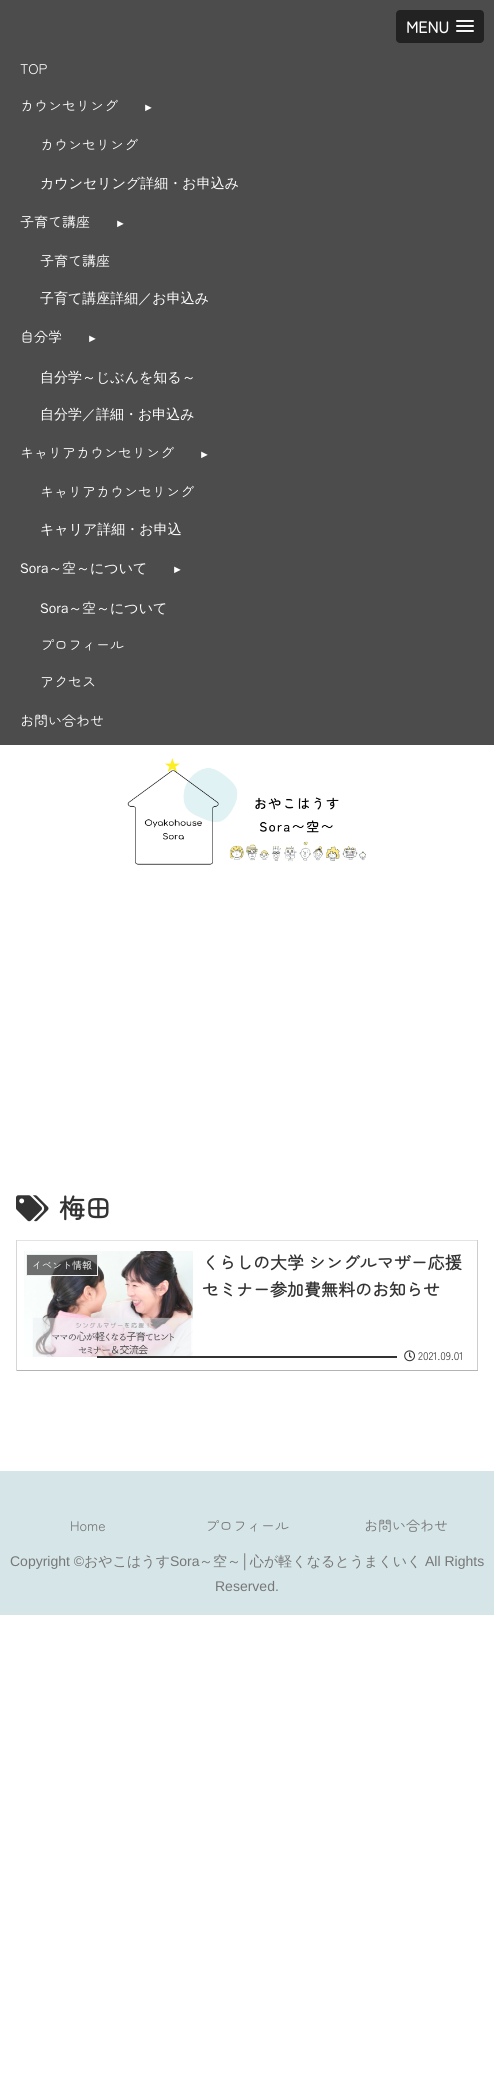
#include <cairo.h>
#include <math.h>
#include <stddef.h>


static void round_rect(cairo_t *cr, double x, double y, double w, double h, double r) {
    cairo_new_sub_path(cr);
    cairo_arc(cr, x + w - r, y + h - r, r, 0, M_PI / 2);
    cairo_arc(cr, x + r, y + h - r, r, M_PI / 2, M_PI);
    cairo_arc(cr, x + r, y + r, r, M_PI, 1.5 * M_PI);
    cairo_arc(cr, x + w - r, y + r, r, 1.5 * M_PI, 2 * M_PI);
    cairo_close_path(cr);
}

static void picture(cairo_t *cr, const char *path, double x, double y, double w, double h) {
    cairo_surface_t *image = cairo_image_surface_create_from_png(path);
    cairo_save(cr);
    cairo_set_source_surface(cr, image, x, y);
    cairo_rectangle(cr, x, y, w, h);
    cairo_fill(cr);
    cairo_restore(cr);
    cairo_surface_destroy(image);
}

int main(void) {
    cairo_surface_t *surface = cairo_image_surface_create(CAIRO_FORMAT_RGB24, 494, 2076);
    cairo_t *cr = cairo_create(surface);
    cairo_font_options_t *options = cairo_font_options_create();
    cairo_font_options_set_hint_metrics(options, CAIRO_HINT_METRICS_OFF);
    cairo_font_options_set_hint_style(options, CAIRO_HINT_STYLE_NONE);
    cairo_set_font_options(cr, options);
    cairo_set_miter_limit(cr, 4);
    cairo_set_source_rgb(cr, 1, 1, 1);
    cairo_paint(cr);
    cairo_set_source_rgb(cr, 0.298, 0.298, 0.298);
    cairo_rectangle(cr, 0, 0, 494, 745);
    cairo_fill(cr);
    cairo_set_source_rgb(cr, 0.133, 0.133, 0.133);
    round_rect(cr, 396, 10, 88, 33, 4);
    cairo_fill(cr);
    cairo_select_font_face(cr, "Zen Maru Gothic", CAIRO_FONT_SLANT_NORMAL, CAIRO_FONT_WEIGHT_BOLD);
    cairo_set_font_size(cr, 16);
    cairo_set_source_rgb(cr, 1, 1, 1);
    cairo_move_to(cr, 406, 33);
    cairo_show_text(cr, "MENU");
    cairo_set_source_rgb(cr, 0.102, 0.102, 0.102);
    cairo_new_path(cr);
    cairo_move_to(cr, 456, 21.5);
    cairo_curve_to(cr, 455, 23.5, 459.5, 23, 459.5, 23);
    cairo_line_to(cr, 470.5, 23);
    cairo_curve_to(cr, 470.5, 23, 475, 23.5, 474, 21.5);
    cairo_curve_to(cr, 473, 22.5, 466.5, 22, 465, 22);
    cairo_curve_to(cr, 463.5, 22, 457, 22.5, 456, 21.5);
    cairo_close_path(cr);
    cairo_fill(cr);
    cairo_set_source_rgb(cr, 0.961, 0.961, 0.961);
    round_rect(cr, 456, 20, 18, 2, 1);
    cairo_fill(cr);
    cairo_set_source_rgb(cr, 0.102, 0.102, 0.102);
    cairo_new_path(cr);
    cairo_move_to(cr, 456, 26.5);
    cairo_curve_to(cr, 455, 28.5, 459.5, 28, 459.5, 28);
    cairo_line_to(cr, 470.5, 28);
    cairo_curve_to(cr, 470.5, 28, 475, 28.5, 474, 26.5);
    cairo_curve_to(cr, 473, 27.5, 466.5, 27, 465, 27);
    cairo_curve_to(cr, 463.5, 27, 457, 27.5, 456, 26.5);
    cairo_close_path(cr);
    cairo_fill(cr);
    cairo_set_source_rgb(cr, 0.961, 0.961, 0.961);
    round_rect(cr, 456, 25, 18, 2, 1);
    cairo_fill(cr);
    cairo_set_source_rgb(cr, 0.102, 0.102, 0.102);
    cairo_new_path(cr);
    cairo_move_to(cr, 456, 31.5);
    cairo_curve_to(cr, 455, 33.5, 459.5, 33, 459.5, 33);
    cairo_line_to(cr, 470.5, 33);
    cairo_curve_to(cr, 470.5, 33, 475, 33.5, 474, 31.5);
    cairo_curve_to(cr, 473, 32.5, 466.5, 32, 465, 32);
    cairo_curve_to(cr, 463.5, 32, 457, 32.5, 456, 31.5);
    cairo_close_path(cr);
    cairo_fill(cr);
    cairo_set_source_rgb(cr, 0.961, 0.961, 0.961);
    round_rect(cr, 456, 30, 18, 2, 1);
    cairo_fill(cr);
    cairo_select_font_face(cr, "Zen Maru Gothic", CAIRO_FONT_SLANT_NORMAL, CAIRO_FONT_WEIGHT_NORMAL);
    cairo_set_font_size(cr, 14);
    cairo_set_source_rgb(cr, 1, 1, 1);
    cairo_move_to(cr, 20, 74);
    cairo_show_text(cr, "TOP");
    cairo_move_to(cr, 20, 111);
    cairo_show_text(cr, "カウンセリング");
    cairo_select_font_face(cr, "Liberation Serif", CAIRO_FONT_SLANT_NORMAL, CAIRO_FONT_WEIGHT_NORMAL);
    cairo_set_font_size(cr, 11);
    cairo_move_to(cr, 143, 111);
    cairo_show_text(cr, "►");
    cairo_select_font_face(cr, "Zen Maru Gothic", CAIRO_FONT_SLANT_NORMAL, CAIRO_FONT_WEIGHT_NORMAL);
    cairo_set_font_size(cr, 14);
    cairo_move_to(cr, 40, 150);
    cairo_show_text(cr, "カウンセリング");
    cairo_select_font_face(cr, "WenQuanYi Zen Hei Medium", CAIRO_FONT_SLANT_NORMAL, CAIRO_FONT_WEIGHT_NORMAL);
    cairo_move_to(cr, 40, 188);
    cairo_show_text(cr, "カウンセリング詳細・お申込み");
    cairo_select_font_face(cr, "Zen Maru Gothic", CAIRO_FONT_SLANT_NORMAL, CAIRO_FONT_WEIGHT_NORMAL);
    cairo_move_to(cr, 20, 227);
    cairo_show_text(cr, "子育て講座");
    cairo_select_font_face(cr, "Liberation Serif", CAIRO_FONT_SLANT_NORMAL, CAIRO_FONT_WEIGHT_NORMAL);
    cairo_set_font_size(cr, 11);
    cairo_move_to(cr, 115, 227);
    cairo_show_text(cr, "►");
    cairo_select_font_face(cr, "Zen Maru Gothic", CAIRO_FONT_SLANT_NORMAL, CAIRO_FONT_WEIGHT_NORMAL);
    cairo_set_font_size(cr, 14);
    cairo_move_to(cr, 40, 266);
    cairo_show_text(cr, "子育て講座");
    cairo_select_font_face(cr, "WenQuanYi Zen Hei Medium", CAIRO_FONT_SLANT_NORMAL, CAIRO_FONT_WEIGHT_NORMAL);
    cairo_move_to(cr, 40, 303);
    cairo_show_text(cr, "子育て講座詳細／お申込み");
    cairo_select_font_face(cr, "Zen Maru Gothic", CAIRO_FONT_SLANT_NORMAL, CAIRO_FONT_WEIGHT_NORMAL);
    cairo_move_to(cr, 20, 342);
    cairo_show_text(cr, "自分学");
    cairo_select_font_face(cr, "Liberation Serif", CAIRO_FONT_SLANT_NORMAL, CAIRO_FONT_WEIGHT_NORMAL);
    cairo_set_font_size(cr, 11);
    cairo_move_to(cr, 87, 342);
    cairo_show_text(cr, "►");
    cairo_select_font_face(cr, "WenQuanYi Zen Hei Medium", CAIRO_FONT_SLANT_NORMAL, CAIRO_FONT_WEIGHT_NORMAL);
    cairo_set_font_size(cr, 14);
    cairo_move_to(cr, 40, 382);
    cairo_show_text(cr, "自分学～じぶんを知る～");
    cairo_move_to(cr, 40, 419);
    cairo_show_text(cr, "自分学／詳細・お申込み");
    cairo_select_font_face(cr, "Zen Maru Gothic", CAIRO_FONT_SLANT_NORMAL, CAIRO_FONT_WEIGHT_NORMAL);
    cairo_move_to(cr, 20, 458);
    cairo_show_text(cr, "キャリアカウンセリング");
    cairo_select_font_face(cr, "Liberation Serif", CAIRO_FONT_SLANT_NORMAL, CAIRO_FONT_WEIGHT_NORMAL);
    cairo_set_font_size(cr, 11);
    cairo_move_to(cr, 199, 458);
    cairo_show_text(cr, "►");
    cairo_select_font_face(cr, "Zen Maru Gothic", CAIRO_FONT_SLANT_NORMAL, CAIRO_FONT_WEIGHT_NORMAL);
    cairo_set_font_size(cr, 14);
    cairo_move_to(cr, 40, 497);
    cairo_show_text(cr, "キャリアカウンセリング");
    cairo_select_font_face(cr, "WenQuanYi Zen Hei Medium", CAIRO_FONT_SLANT_NORMAL, CAIRO_FONT_WEIGHT_NORMAL);
    cairo_move_to(cr, 40, 534);
    cairo_show_text(cr, "キャリア詳細・お申込");
    cairo_move_to(cr, 20, 573);
    cairo_show_text(cr, "Sora～");
    cairo_select_font_face(cr, "Zen Maru Gothic", CAIRO_FONT_SLANT_NORMAL, CAIRO_FONT_WEIGHT_NORMAL);
    cairo_move_to(cr, 62, 573);
    cairo_show_text(cr, "空");
    cairo_select_font_face(cr, "WenQuanYi Zen Hei Medium", CAIRO_FONT_SLANT_NORMAL, CAIRO_FONT_WEIGHT_NORMAL);
    cairo_move_to(cr, 76, 573);
    cairo_show_text(cr, "～について");
    cairo_select_font_face(cr, "Liberation Serif", CAIRO_FONT_SLANT_NORMAL, CAIRO_FONT_WEIGHT_NORMAL);
    cairo_set_font_size(cr, 11);
    cairo_move_to(cr, 172, 573);
    cairo_show_text(cr, "►");
    cairo_select_font_face(cr, "WenQuanYi Zen Hei Medium", CAIRO_FONT_SLANT_NORMAL, CAIRO_FONT_WEIGHT_NORMAL);
    cairo_set_font_size(cr, 14);
    cairo_move_to(cr, 40, 613);
    cairo_show_text(cr, "Sora～");
    cairo_select_font_face(cr, "Zen Maru Gothic", CAIRO_FONT_SLANT_NORMAL, CAIRO_FONT_WEIGHT_NORMAL);
    cairo_move_to(cr, 82, 613);
    cairo_show_text(cr, "空");
    cairo_select_font_face(cr, "WenQuanYi Zen Hei Medium", CAIRO_FONT_SLANT_NORMAL, CAIRO_FONT_WEIGHT_NORMAL);
    cairo_move_to(cr, 96, 613);
    cairo_show_text(cr, "～について");
    cairo_select_font_face(cr, "Zen Maru Gothic", CAIRO_FONT_SLANT_NORMAL, CAIRO_FONT_WEIGHT_NORMAL);
    cairo_move_to(cr, 40, 650);
    cairo_show_text(cr, "プロフィール");
    cairo_move_to(cr, 40, 687);
    cairo_show_text(cr, "アクセス");
    cairo_move_to(cr, 20, 726);
    cairo_show_text(cr, "お問い合わせ");
    picture(cr, "img1.png", 127, 758, 239, 107);
    picture(cr, "img2.png", 16, 1195, 33, 27);
    cairo_select_font_face(cr, "Zen Maru Gothic", CAIRO_FONT_SLANT_NORMAL, CAIRO_FONT_WEIGHT_BOLD);
    cairo_set_font_size(cr, 26);
    cairo_set_source_rgb(cr, 0.2, 0.2, 0.2);
    cairo_move_to(cr, 59, 1218);
    cairo_show_text(cr, "梅田");
    cairo_set_source_rgb(cr, 0.89, 0.89, 0.89);
    cairo_rectangle(cr, 16, 1240, 462, 1);
    cairo_fill(cr);
    cairo_set_source_rgb(cr, 0.808, 0.808, 0.808);
    cairo_rectangle(cr, 477, 1240, 1, 131);
    cairo_fill(cr);
    cairo_set_source_rgb(cr, 0.706, 0.706, 0.706);
    cairo_rectangle(cr, 16, 1370, 462, 1);
    cairo_fill(cr);
    cairo_set_source_rgb(cr, 0.839, 0.839, 0.839);
    cairo_rectangle(cr, 16, 1240, 1, 131);
    cairo_fill(cr);
    picture(cr, "img3.png", 24, 1251, 169, 106);
    cairo_set_source_rgba(cr, 0.2, 0.2, 0.2, 0.7);
    cairo_rectangle(cr, 26.5, 1254.5, 71, 21);
    cairo_fill_preserve(cr);
    cairo_set_source_rgb(cr, 0.933, 0.933, 0.933);
    cairo_set_line_width(cr, 1);
    cairo_stroke(cr);
    cairo_select_font_face(cr, "Zen Maru Gothic", CAIRO_FONT_SLANT_NORMAL, CAIRO_FONT_WEIGHT_NORMAL);
    cairo_set_font_size(cr, 10);
    cairo_set_source_rgb(cr, 1, 1, 1);
    cairo_move_to(cr, 32, 1269);
    cairo_show_text(cr, "イベント情報");
    cairo_select_font_face(cr, "Zen Maru Gothic", CAIRO_FONT_SLANT_NORMAL, CAIRO_FONT_WEIGHT_BOLD);
    cairo_set_font_size(cr, 17);
    cairo_set_source_rgb(cr, 0.2, 0.2, 0.2);
    cairo_move_to(cr, 202, 1269);
    cairo_show_text(cr, "くらしの大学 シングルマザー応援");
    cairo_move_to(cr, 202, 1296);
    cairo_show_text(cr, "セミナー参加費無料のお知らせ");
    cairo_rectangle(cr, 97, 1356, 300, 2);
    cairo_fill(cr);
    picture(cr, "img4.png", 404, 1350, 11, 12);
    cairo_select_font_face(cr, "Zen Maru Gothic", CAIRO_FONT_SLANT_NORMAL, CAIRO_FONT_WEIGHT_NORMAL);
    cairo_set_font_size(cr, 11);
    cairo_move_to(cr, 418, 1360);
    cairo_show_text(cr, "2021.09.01");
    cairo_set_source_rgb(cr, 0.839, 0.898, 0.91);
    cairo_rectangle(cr, 0, 1471, 494, 144);
    cairo_fill(cr);
    cairo_set_font_size(cr, 14);
    cairo_set_source_rgb(cr, 0.467, 0.467, 0.467);
    cairo_move_to(cr, 70, 1531);
    cairo_show_text(cr, "Home");
    cairo_move_to(cr, 205, 1531);
    cairo_show_text(cr, "プロフィール");
    cairo_move_to(cr, 364, 1531);
    cairo_show_text(cr, "お問い合わせ");
    cairo_select_font_face(cr, "Liberation Sans", CAIRO_FONT_SLANT_NORMAL, CAIRO_FONT_WEIGHT_NORMAL);
    cairo_move_to(cr, 10, 1566);
    cairo_show_text(cr, "Copyright ©");
    cairo_select_font_face(cr, "WenQuanYi Zen Hei Medium", CAIRO_FONT_SLANT_NORMAL, CAIRO_FONT_WEIGHT_NORMAL);
    cairo_move_to(cr, 84, 1566);
    cairo_show_text(cr, "おやこはうす");
    cairo_select_font_face(cr, "Liberation Sans", CAIRO_FONT_SLANT_NORMAL, CAIRO_FONT_WEIGHT_NORMAL);
    cairo_move_to(cr, 170, 1566);
    cairo_show_text(cr, "Sora");
    cairo_select_font_face(cr, "WenQuanYi Zen Hei Medium", CAIRO_FONT_SLANT_NORMAL, CAIRO_FONT_WEIGHT_NORMAL);
    cairo_move_to(cr, 199, 1566);
    cairo_show_text(cr, "～空～");
    cairo_select_font_face(cr, "Liberation Sans", CAIRO_FONT_SLANT_NORMAL, CAIRO_FONT_WEIGHT_NORMAL);
    cairo_move_to(cr, 241, 1566);
    cairo_show_text(cr, "│");
    cairo_select_font_face(cr, "WenQuanYi Zen Hei Medium", CAIRO_FONT_SLANT_NORMAL, CAIRO_FONT_WEIGHT_NORMAL);
    cairo_move_to(cr, 250, 1566);
    cairo_show_text(cr, "心が軽くなるとうまくいく");
    cairo_select_font_face(cr, "Liberation Sans", CAIRO_FONT_SLANT_NORMAL, CAIRO_FONT_WEIGHT_NORMAL);
    cairo_move_to(cr, 425, 1566);
    cairo_show_text(cr, "All Rights");
    cairo_move_to(cr, 215, 1591);
    cairo_show_text(cr, "Reserved.");
    cairo_surface_write_to_png(surface, "page.png");
    cairo_font_options_destroy(options);
    cairo_destroy(cr);
    cairo_surface_destroy(surface);
    return 0;
}
